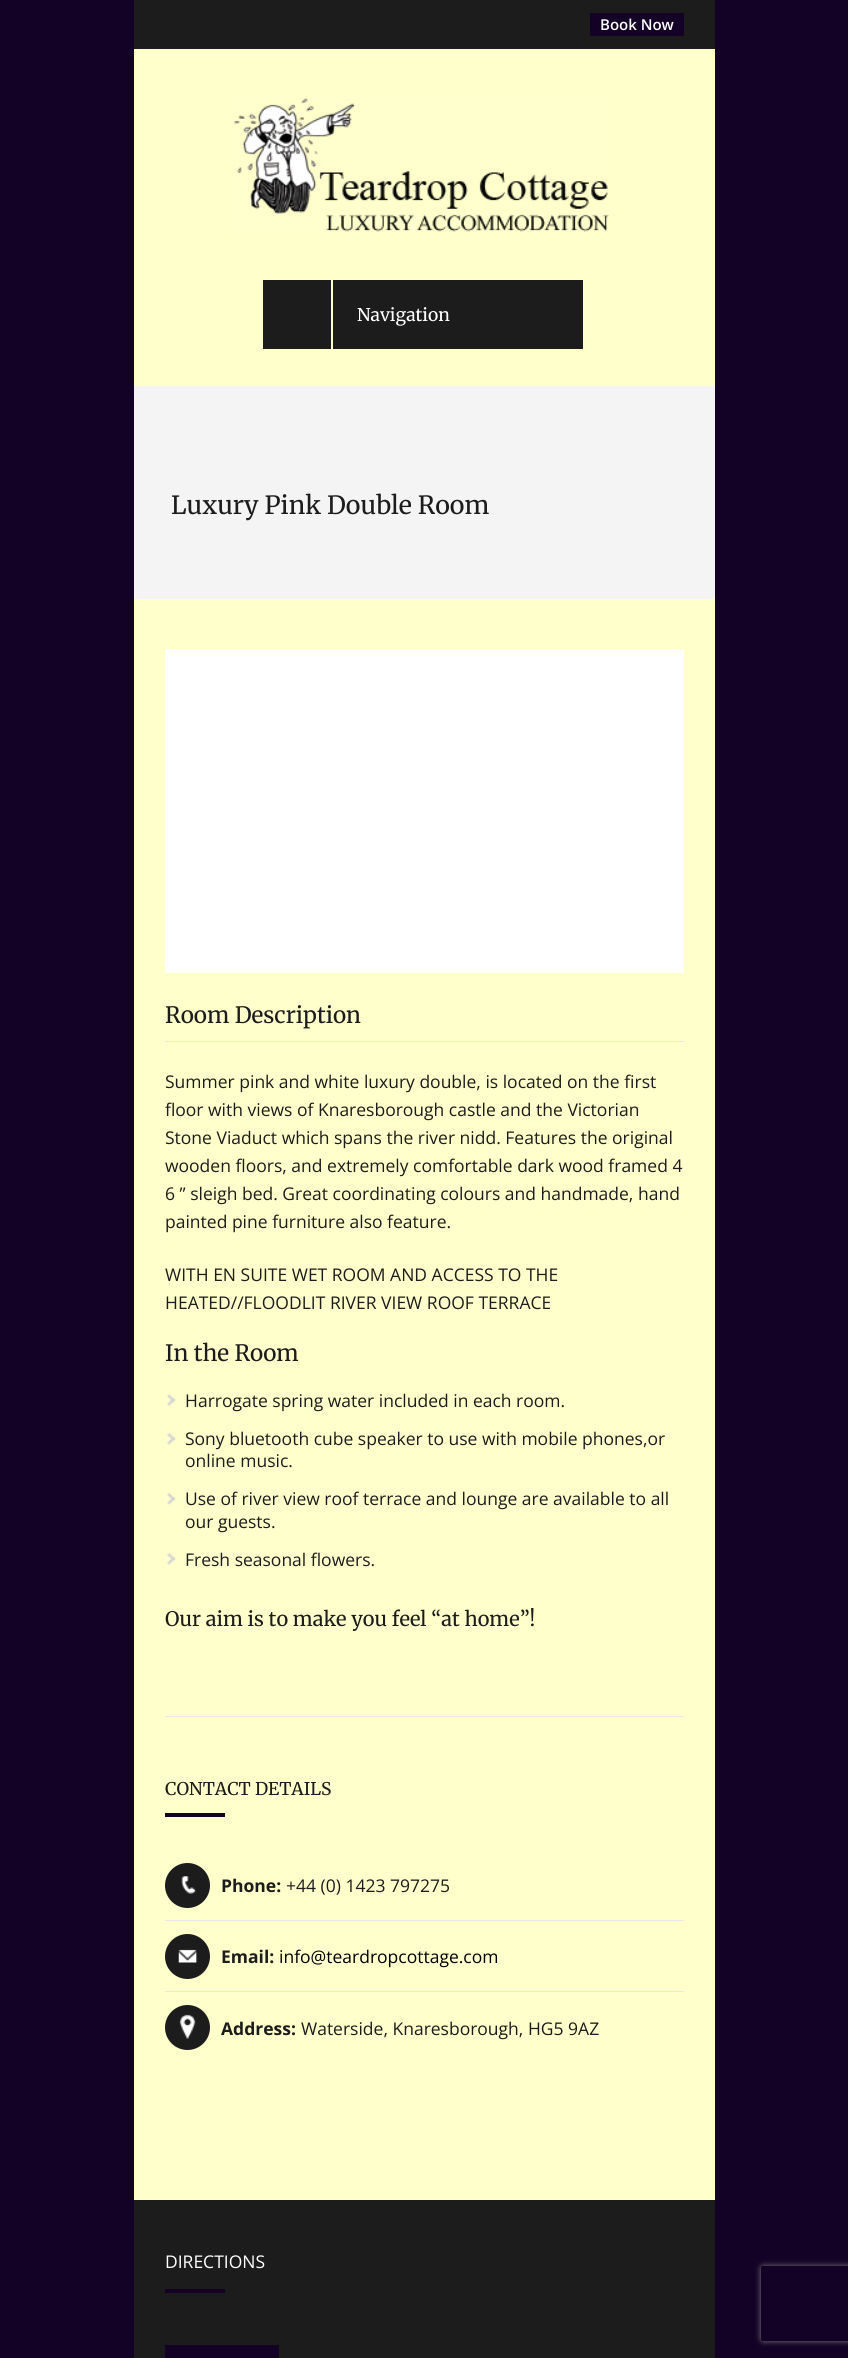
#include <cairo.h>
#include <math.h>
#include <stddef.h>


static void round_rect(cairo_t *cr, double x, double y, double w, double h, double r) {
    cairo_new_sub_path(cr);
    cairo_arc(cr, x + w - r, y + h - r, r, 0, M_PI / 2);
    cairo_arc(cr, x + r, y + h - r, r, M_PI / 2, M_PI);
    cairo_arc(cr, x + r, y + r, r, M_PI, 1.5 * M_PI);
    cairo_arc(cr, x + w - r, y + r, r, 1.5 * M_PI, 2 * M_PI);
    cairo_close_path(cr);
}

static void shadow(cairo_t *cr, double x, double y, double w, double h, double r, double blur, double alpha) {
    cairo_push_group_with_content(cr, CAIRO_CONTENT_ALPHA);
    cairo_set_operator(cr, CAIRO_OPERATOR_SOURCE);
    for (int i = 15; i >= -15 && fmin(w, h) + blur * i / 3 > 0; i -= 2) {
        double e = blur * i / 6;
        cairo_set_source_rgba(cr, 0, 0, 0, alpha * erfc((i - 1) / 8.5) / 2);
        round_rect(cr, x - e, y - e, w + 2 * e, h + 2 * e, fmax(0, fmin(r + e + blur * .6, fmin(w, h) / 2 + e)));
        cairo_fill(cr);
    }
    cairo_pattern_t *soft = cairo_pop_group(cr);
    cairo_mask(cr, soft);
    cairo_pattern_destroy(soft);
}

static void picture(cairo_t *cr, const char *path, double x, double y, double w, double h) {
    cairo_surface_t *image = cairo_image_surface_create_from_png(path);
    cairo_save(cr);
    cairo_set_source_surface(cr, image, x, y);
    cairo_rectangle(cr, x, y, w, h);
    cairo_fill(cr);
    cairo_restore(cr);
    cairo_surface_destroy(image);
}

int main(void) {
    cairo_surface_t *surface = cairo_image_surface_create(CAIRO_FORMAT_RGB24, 848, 2358);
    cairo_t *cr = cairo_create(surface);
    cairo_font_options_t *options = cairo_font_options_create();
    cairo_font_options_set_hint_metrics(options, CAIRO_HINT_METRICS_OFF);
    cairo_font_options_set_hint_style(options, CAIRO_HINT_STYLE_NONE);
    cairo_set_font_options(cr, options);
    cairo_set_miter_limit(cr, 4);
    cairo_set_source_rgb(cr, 0.075, 0.004, 0.149);
    cairo_paint(cr);
    cairo_set_source_rgb(cr, 1, 1, 0.8);
    cairo_rectangle(cr, 134, 49, 581, 2151);
    cairo_fill(cr);
    cairo_set_source_rgb(cr, 0.11, 0.11, 0.11);
    cairo_rectangle(cr, 134, 0, 581, 49);
    cairo_fill(cr);
    cairo_set_source_rgb(cr, 0.075, 0.004, 0.149);
    cairo_rectangle(cr, 590, 13, 94, 23);
    cairo_fill(cr);
    cairo_select_font_face(cr, "Open Sans SemiBold", CAIRO_FONT_SLANT_NORMAL, CAIRO_FONT_WEIGHT_NORMAL);
    cairo_set_font_size(cr, 15);
    cairo_set_source_rgb(cr, 1, 1, 1);
    cairo_move_to(cr, 600, 30);
    cairo_show_text(cr, "Book Now");
    picture(cr, "img1.png", 233, 98, 376, 134);
    cairo_set_source_rgb(cr, 0.11, 0.11, 0.11);
    cairo_rectangle(cr, 263, 280, 68, 69);
    cairo_fill(cr);
    cairo_rectangle(cr, 333, 280, 250, 69);
    cairo_fill(cr);
    cairo_select_font_face(cr, "Merriweather", CAIRO_FONT_SLANT_NORMAL, CAIRO_FONT_WEIGHT_NORMAL);
    cairo_set_font_size(cr, 17.5);
    cairo_set_source_rgb(cr, 1, 1, 1);
    cairo_move_to(cr, 357, 321);
    cairo_show_text(cr, "Navigation");
    cairo_set_source_rgb(cr, 0.957, 0.957, 0.957);
    cairo_rectangle(cr, 134, 386, 581, 213);
    cairo_fill(cr);
    cairo_set_font_size(cr, 25);
    cairo_set_source_rgb(cr, 0.11, 0.11, 0.11);
    cairo_move_to(cr, 171, 514);
    cairo_show_text(cr, "Luxury Pink Double Room");
    cairo_set_source_rgb(cr, 1, 1, 1);
    cairo_rectangle(cr, 165, 649, 519, 324);
    cairo_fill(cr);
    cairo_set_source_rgb(cr, 0.91, 0.91, 0.91);
    cairo_rectangle(cr, 165, 1041, 519, 1);
    cairo_fill(cr);
    cairo_set_font_size(cr, 22.5);
    cairo_set_source_rgb(cr, 0.11, 0.11, 0.11);
    cairo_move_to(cr, 165, 1023);
    cairo_show_text(cr, "Room Description");
    cairo_select_font_face(cr, "Open Sans", CAIRO_FONT_SLANT_NORMAL, CAIRO_FONT_WEIGHT_NORMAL);
    cairo_set_font_size(cr, 17.5);
    cairo_move_to(cr, 165, 1088);
    cairo_show_text(cr, "Summer pink and white luxury double, is located on the first");
    cairo_move_to(cr, 165, 1116);
    cairo_show_text(cr, "floor with views of Knaresborough castle and the Victorian");
    cairo_move_to(cr, 165, 1144);
    cairo_show_text(cr, "Stone Viaduct which spans the river nidd. Features the original");
    cairo_move_to(cr, 165, 1172);
    cairo_show_text(cr, "wooden floors, and extremely comfortable dark wood framed 4");
    cairo_move_to(cr, 165, 1200);
    cairo_show_text(cr, "6 ” sleigh bed. Great coordinating colours and handmade, hand");
    cairo_move_to(cr, 165, 1228);
    cairo_show_text(cr, "painted pine furniture also feature.");
    cairo_move_to(cr, 165, 1281);
    cairo_show_text(cr, "WITH EN SUITE WET ROOM AND ACCESS TO THE");
    cairo_move_to(cr, 165, 1309);
    cairo_show_text(cr, "HEATED//FLOODLIT RIVER VIEW ROOF TERRACE");
    cairo_select_font_face(cr, "Merriweather", CAIRO_FONT_SLANT_NORMAL, CAIRO_FONT_WEIGHT_NORMAL);
    cairo_set_font_size(cr, 22.5);
    cairo_move_to(cr, 165, 1361);
    cairo_show_text(cr, "In the Room");
    picture(cr, "img2.png", 167, 1393, 9, 13);
    cairo_select_font_face(cr, "Open Sans", CAIRO_FONT_SLANT_NORMAL, CAIRO_FONT_WEIGHT_NORMAL);
    cairo_set_font_size(cr, 17.5);
    cairo_move_to(cr, 185, 1407);
    cairo_show_text(cr, "Harrogate spring water included in each room.");
    picture(cr, "img3.png", 167, 1432, 9, 13);
    cairo_move_to(cr, 185, 1445);
    cairo_show_text(cr, "Sony bluetooth cube speaker to use with mobile phones,or");
    cairo_move_to(cr, 185, 1467);
    cairo_show_text(cr, "online music.");
    picture(cr, "img3.png", 167, 1492, 9, 13);
    cairo_move_to(cr, 185, 1505);
    cairo_show_text(cr, "Use of river view roof terrace and lounge are available to all");
    cairo_move_to(cr, 185, 1528);
    cairo_show_text(cr, "our guests.");
    picture(cr, "img3.png", 167, 1552, 9, 13);
    cairo_move_to(cr, 185, 1566);
    cairo_show_text(cr, "Fresh seasonal flowers.");
    cairo_select_font_face(cr, "Merriweather", CAIRO_FONT_SLANT_NORMAL, CAIRO_FONT_WEIGHT_NORMAL);
    cairo_set_font_size(cr, 20);
    cairo_move_to(cr, 165, 1626);
    cairo_show_text(cr, "Our aim is to make you feel “at home”!");
    cairo_set_source_rgb(cr, 0.91, 0.91, 0.91);
    cairo_rectangle(cr, 165, 1716, 519, 1);
    cairo_fill(cr);
    cairo_set_font_size(cr, 17.5);
    cairo_set_source_rgb(cr, 0.11, 0.11, 0.11);
    cairo_move_to(cr, 165, 1795);
    cairo_show_text(cr, "CONTACT DETAILS");
    cairo_set_source_rgb(cr, 0.075, 0.004, 0.149);
    cairo_rectangle(cr, 165, 1813, 60, 4);
    cairo_fill(cr);
    cairo_set_source_rgb(cr, 0.91, 0.91, 0.91);
    cairo_rectangle(cr, 165, 1920, 519, 1);
    cairo_fill(cr);
    cairo_set_source_rgb(cr, 0.11, 0.11, 0.11);
    cairo_arc(cr, 187.5, 1885.5, 22.5, 0, 2 * M_PI);
    cairo_fill(cr);
    picture(cr, "img4.png", 181, 1876, 15, 18);
    cairo_select_font_face(cr, "Open Sans", CAIRO_FONT_SLANT_NORMAL, CAIRO_FONT_WEIGHT_BOLD);
    cairo_move_to(cr, 221, 1892);
    cairo_show_text(cr, "Phone:");
    cairo_select_font_face(cr, "Open Sans", CAIRO_FONT_SLANT_NORMAL, CAIRO_FONT_WEIGHT_NORMAL);
    cairo_move_to(cr, 286, 1892);
    cairo_show_text(cr, "+44 (0) 1423 797275");
    cairo_set_source_rgb(cr, 0.91, 0.91, 0.91);
    cairo_rectangle(cr, 165, 1991, 519, 1);
    cairo_fill(cr);
    cairo_set_source_rgb(cr, 0.11, 0.11, 0.11);
    cairo_arc(cr, 187.5, 1956.5, 22.5, 0, 2 * M_PI);
    cairo_fill(cr);
    picture(cr, "img5.png", 178, 1949, 20, 14);
    cairo_select_font_face(cr, "Open Sans", CAIRO_FONT_SLANT_NORMAL, CAIRO_FONT_WEIGHT_BOLD);
    cairo_move_to(cr, 221, 1963);
    cairo_show_text(cr, "Email:");
    cairo_select_font_face(cr, "Open Sans", CAIRO_FONT_SLANT_NORMAL, CAIRO_FONT_WEIGHT_NORMAL);
    cairo_set_source_rgb(cr, 0, 0, 0);
    cairo_move_to(cr, 279, 1963);
    cairo_show_text(cr, "info@teardropcottage.com");
    cairo_set_source_rgb(cr, 0.11, 0.11, 0.11);
    cairo_new_path(cr);
    cairo_arc(cr, 187.5, 2027.5, 22.5, 0, 2 * M_PI);
    cairo_fill(cr);
    picture(cr, "img6.png", 179, 2014, 17, 25);
    cairo_select_font_face(cr, "Open Sans", CAIRO_FONT_SLANT_NORMAL, CAIRO_FONT_WEIGHT_BOLD);
    cairo_move_to(cr, 221, 2035);
    cairo_show_text(cr, "Address:");
    cairo_select_font_face(cr, "Open Sans", CAIRO_FONT_SLANT_NORMAL, CAIRO_FONT_WEIGHT_NORMAL);
    cairo_move_to(cr, 301, 2035);
    cairo_show_text(cr, "Waterside, Knaresborough, HG5 9AZ");
    cairo_rectangle(cr, 134, 2200, 581, 158);
    cairo_fill(cr);
    cairo_set_source_rgb(cr, 1, 1, 1);
    cairo_move_to(cr, 165, 2268);
    cairo_show_text(cr, "DIRECTIONS");
    cairo_set_source_rgb(cr, 0.075, 0.004, 0.149);
    cairo_rectangle(cr, 165, 2289, 60, 4);
    cairo_fill(cr);
    cairo_rectangle(cr, 165, 2345, 114, 13);
    cairo_fill(cr);
    cairo_save(cr);
    cairo_set_fill_rule(cr, CAIRO_FILL_RULE_EVEN_ODD);
    cairo_new_path(cr);
    cairo_move_to(cr, 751, 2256);
    cairo_line_to(cr, 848, 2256);
    cairo_line_to(cr, 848, 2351);
    cairo_line_to(cr, 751, 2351);
    cairo_close_path(cr);
    cairo_move_to(cr, 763.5, 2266);
    cairo_line_to(cr, 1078.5, 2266);
    cairo_curve_to(cr, 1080, 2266, 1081, 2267, 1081, 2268.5);
    cairo_line_to(cr, 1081, 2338.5);
    cairo_curve_to(cr, 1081, 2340, 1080, 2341, 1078.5, 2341);
    cairo_line_to(cr, 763.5, 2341);
    cairo_curve_to(cr, 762, 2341, 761, 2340, 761, 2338.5);
    cairo_line_to(cr, 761, 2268.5);
    cairo_curve_to(cr, 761, 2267, 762, 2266, 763.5, 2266);
    cairo_close_path(cr);
    cairo_clip(cr);
    cairo_set_source_rgb(cr, 0.502, 0.502, 0.502);
    shadow(cr, 761, 2266, 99, 75, 2.5, 3, 1);
    cairo_restore(cr);
    cairo_surface_write_to_png(surface, "page.png");
    cairo_font_options_destroy(options);
    cairo_destroy(cr);
    cairo_surface_destroy(surface);
    return 0;
}
